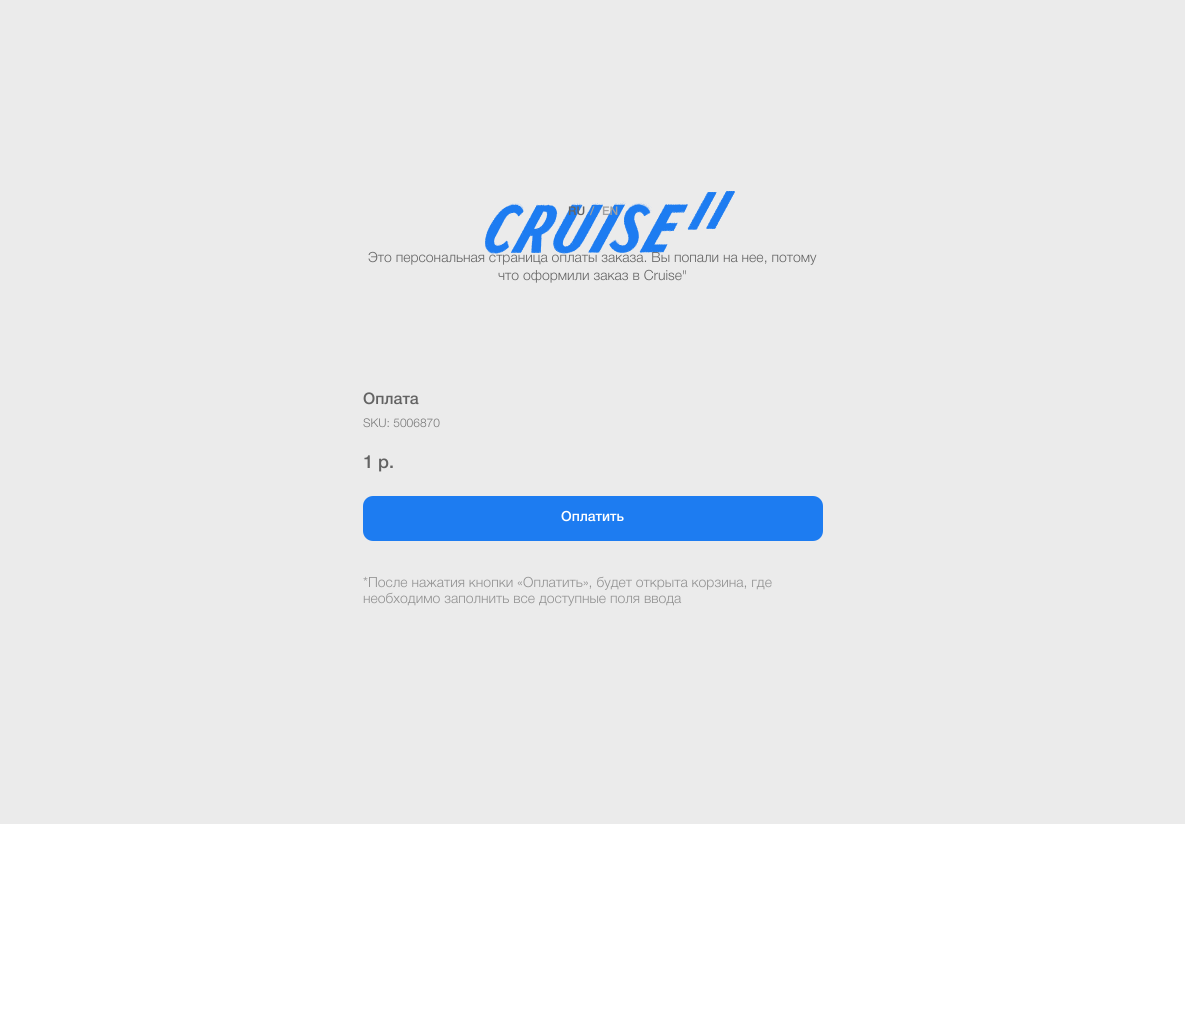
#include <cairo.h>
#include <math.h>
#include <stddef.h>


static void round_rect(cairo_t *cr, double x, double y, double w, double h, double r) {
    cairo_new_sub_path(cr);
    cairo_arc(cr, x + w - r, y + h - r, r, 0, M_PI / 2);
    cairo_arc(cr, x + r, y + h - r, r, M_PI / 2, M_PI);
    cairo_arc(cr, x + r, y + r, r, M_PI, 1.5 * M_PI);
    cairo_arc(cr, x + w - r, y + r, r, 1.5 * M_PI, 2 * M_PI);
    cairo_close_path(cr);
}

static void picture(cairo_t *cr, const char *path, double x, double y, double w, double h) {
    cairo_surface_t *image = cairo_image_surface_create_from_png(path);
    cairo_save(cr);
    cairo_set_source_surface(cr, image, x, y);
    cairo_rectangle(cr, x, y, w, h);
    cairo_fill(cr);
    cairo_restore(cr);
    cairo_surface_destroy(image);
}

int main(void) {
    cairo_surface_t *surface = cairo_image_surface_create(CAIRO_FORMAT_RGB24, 1185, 1028);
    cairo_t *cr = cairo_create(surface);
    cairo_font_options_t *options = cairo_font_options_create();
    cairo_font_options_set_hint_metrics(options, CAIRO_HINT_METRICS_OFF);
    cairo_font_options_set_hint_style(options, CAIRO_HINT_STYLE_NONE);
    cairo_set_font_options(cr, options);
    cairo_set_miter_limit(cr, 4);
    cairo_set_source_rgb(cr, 1, 1, 1);
    cairo_paint(cr);
    cairo_set_source_rgb(cr, 0.918, 0.918, 0.918);
    cairo_rectangle(cr, 0, 0, 1185, 390);
    cairo_fill(cr);
    picture(cr, "img1.png", 485, 191, 250, 63);
    cairo_select_font_face(cr, "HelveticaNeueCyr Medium", CAIRO_FONT_SLANT_NORMAL, CAIRO_FONT_WEIGHT_NORMAL);
    cairo_set_font_size(cr, 12);
    cairo_set_source_rgb(cr, 0.388, 0.388, 0.388);
    cairo_move_to(cr, 568, 215);
    cairo_show_text(cr, "RU");
    cairo_set_source_rgb(cr, 0.631, 0.631, 0.631);
    cairo_move_to(cr, 590, 215);
    cairo_show_text(cr, "/");
    cairo_move_to(cr, 602, 215);
    cairo_show_text(cr, "EN");
    cairo_select_font_face(cr, "HelveticaNeueCyr Light", CAIRO_FONT_SLANT_NORMAL, CAIRO_FONT_WEIGHT_NORMAL);
    cairo_set_font_size(cr, 14);
    cairo_set_source_rgb(cr, 0.388, 0.388, 0.388);
    cairo_move_to(cr, 368, 262);
    cairo_show_text(cr, "Это персональная страница оплаты заказа. Вы попали на нее, потому");
    cairo_move_to(cr, 498, 280);
    cairo_show_text(cr, "что оформили заказ в Cruise\"");
    cairo_set_source_rgb(cr, 0.918, 0.918, 0.918);
    cairo_rectangle(cr, 0, 390, 1185, 434);
    cairo_fill(cr);
    cairo_select_font_face(cr, "HelveticaNeueCyr Medium", CAIRO_FONT_SLANT_NORMAL, CAIRO_FONT_WEIGHT_NORMAL);
    cairo_set_font_size(cr, 16);
    cairo_set_source_rgb(cr, 0.388, 0.388, 0.388);
    cairo_move_to(cr, 363, 404);
    cairo_show_text(cr, "Оплата");
    cairo_select_font_face(cr, "HelveticaNeueCyr Light", CAIRO_FONT_SLANT_NORMAL, CAIRO_FONT_WEIGHT_NORMAL);
    cairo_set_font_size(cr, 12);
    cairo_set_source_rgb(cr, 0.467, 0.467, 0.467);
    cairo_move_to(cr, 363, 427);
    cairo_show_text(cr, "SKU: 5006870");
    cairo_select_font_face(cr, "HelveticaNeueCyr Medium", CAIRO_FONT_SLANT_NORMAL, CAIRO_FONT_WEIGHT_NORMAL);
    cairo_set_font_size(cr, 18);
    cairo_set_source_rgb(cr, 0.388, 0.388, 0.388);
    cairo_move_to(cr, 363, 468);
    cairo_show_text(cr, "1 р.");
    cairo_set_source_rgb(cr, 0.114, 0.486, 0.945);
    round_rect(cr, 363, 496, 460, 45, 10);
    cairo_fill(cr);
    cairo_set_font_size(cr, 14);
    cairo_set_source_rgb(cr, 1, 1, 1);
    cairo_move_to(cr, 561, 521);
    cairo_show_text(cr, "Оплатить");
    cairo_select_font_face(cr, "HelveticaNeueCyr Light", CAIRO_FONT_SLANT_NORMAL, CAIRO_FONT_WEIGHT_NORMAL);
    cairo_set_source_rgb(cr, 0.569, 0.569, 0.569);
    cairo_move_to(cr, 363, 587);
    cairo_show_text(cr, "*После нажатия кнопки «Оплатить», будет открыта корзина, где");
    cairo_move_to(cr, 363, 603);
    cairo_show_text(cr, "необходимо заполнить все доступные поля ввода");
    cairo_surface_write_to_png(surface, "page.png");
    cairo_font_options_destroy(options);
    cairo_destroy(cr);
    cairo_surface_destroy(surface);
    return 0;
}
